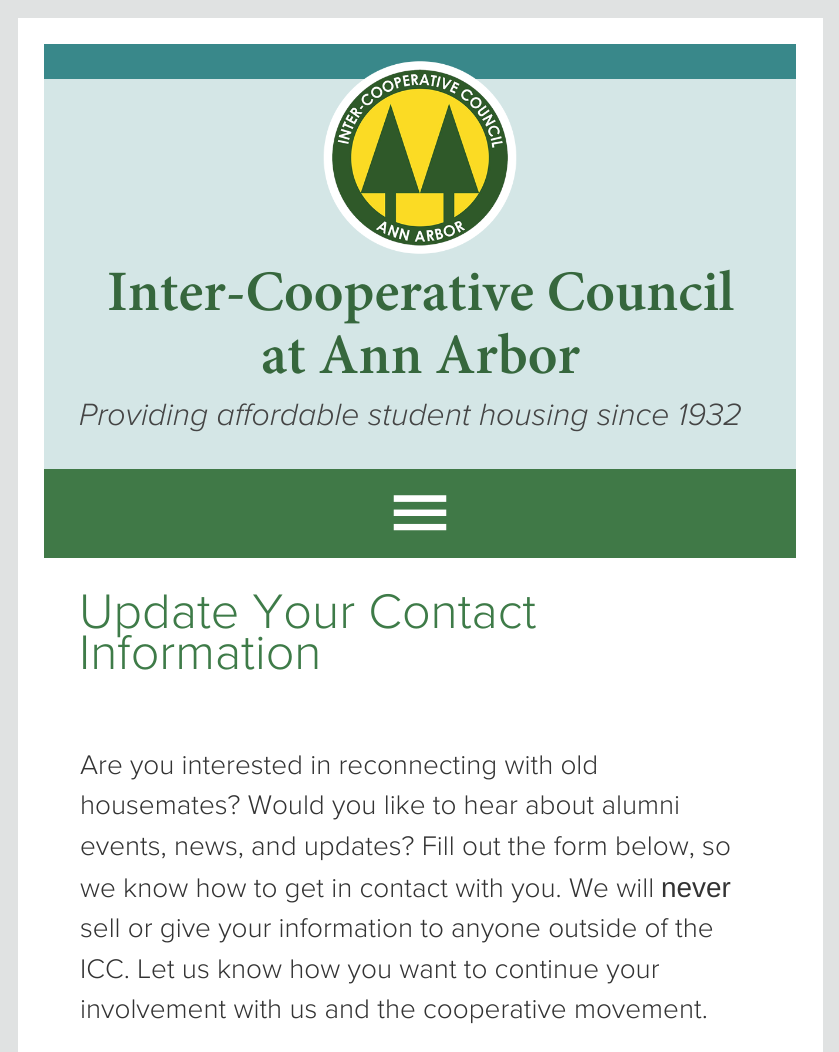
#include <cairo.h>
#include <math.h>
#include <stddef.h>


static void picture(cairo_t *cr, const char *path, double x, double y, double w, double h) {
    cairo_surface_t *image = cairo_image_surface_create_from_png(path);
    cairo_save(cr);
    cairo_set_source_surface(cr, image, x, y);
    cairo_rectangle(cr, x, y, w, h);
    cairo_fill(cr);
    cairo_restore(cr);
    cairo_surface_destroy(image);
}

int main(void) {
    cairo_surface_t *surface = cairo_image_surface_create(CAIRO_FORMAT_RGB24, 839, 1052);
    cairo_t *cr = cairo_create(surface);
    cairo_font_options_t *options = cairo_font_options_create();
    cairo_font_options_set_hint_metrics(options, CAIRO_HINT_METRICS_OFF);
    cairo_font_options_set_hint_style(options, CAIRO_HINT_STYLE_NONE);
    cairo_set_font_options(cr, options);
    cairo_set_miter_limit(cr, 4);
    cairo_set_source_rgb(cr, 0.878, 0.886, 0.886);
    cairo_paint(cr);
    cairo_set_source_rgb(cr, 1, 1, 1);
    cairo_rectangle(cr, 18, 18, 805, 1034);
    cairo_fill(cr);
    cairo_set_source_rgb(cr, 0.831, 0.902, 0.902);
    cairo_rectangle(cr, 44, 79, 752, 390);
    cairo_fill(cr);
    cairo_set_source_rgb(cr, 0.224, 0.533, 0.541);
    cairo_rectangle(cr, 44, 44, 752, 35);
    cairo_fill(cr);
    picture(cr, "img1.png", 323, 61, 194, 193);
    cairo_select_font_face(cr, "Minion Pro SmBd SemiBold", CAIRO_FONT_SLANT_NORMAL, CAIRO_FONT_WEIGHT_NORMAL);
    cairo_set_font_size(cr, 57.25);
    cairo_set_source_rgb(cr, 0.212, 0.404, 0.239);
    cairo_move_to(cr, 107, 310);
    cairo_show_text(cr, "Inter-Cooperative Council");
    cairo_move_to(cr, 261, 373);
    cairo_show_text(cr, "at Ann Arbor");
    cairo_select_font_face(cr, "Proxima Nova Light", CAIRO_FONT_SLANT_ITALIC, CAIRO_FONT_WEIGHT_NORMAL);
    cairo_set_font_size(cr, 31.9);
    cairo_set_source_rgb(cr, 0.267, 0.267, 0.267);
    cairo_move_to(cr, 79, 425);
    cairo_show_text(cr, "Providing affordable student housing since 1932");
    cairo_set_source_rgb(cr, 0.251, 0.475, 0.278);
    cairo_rectangle(cr, 44, 469, 752, 89);
    cairo_fill(cr);
    picture(cr, "img2.png", 393, 495, 54, 36);
    cairo_select_font_face(cr, "Proxima Nova Light", CAIRO_FONT_SLANT_NORMAL, CAIRO_FONT_WEIGHT_NORMAL);
    cairo_set_font_size(cr, 50.25);
    cairo_set_source_rgb(cr, 0.243, 0.482, 0.282);
    cairo_move_to(cr, 79, 628);
    cairo_show_text(cr, "Update Your Contact");
    cairo_move_to(cr, 79, 669);
    cairo_show_text(cr, "Information");
    cairo_set_font_size(cr, 27.9);
    cairo_set_source_rgb(cr, 0.2, 0.2, 0.2);
    cairo_move_to(cr, 80, 774);
    cairo_show_text(cr, "Are you interested in reconnecting with old");
    cairo_move_to(cr, 80, 814);
    cairo_show_text(cr, "housemates? Would you like to hear about alumni");
    cairo_move_to(cr, 80, 855);
    cairo_show_text(cr, "events, news, and updates? Fill out the form below, so");
    cairo_move_to(cr, 80, 897);
    cairo_show_text(cr, "we know how to get in contact with you. We will");
    cairo_select_font_face(cr, "Liberation Sans", CAIRO_FONT_SLANT_NORMAL, CAIRO_FONT_WEIGHT_NORMAL);
    cairo_move_to(cr, 661, 897);
    cairo_show_text(cr, "never");
    cairo_select_font_face(cr, "Proxima Nova Light", CAIRO_FONT_SLANT_NORMAL, CAIRO_FONT_WEIGHT_NORMAL);
    cairo_move_to(cr, 80, 937);
    cairo_show_text(cr, "sell or give your information to anyone outside of the");
    cairo_move_to(cr, 80, 978);
    cairo_show_text(cr, "ICC. Let us know how you want to continue your");
    cairo_move_to(cr, 80, 1018);
    cairo_show_text(cr, "involvement with us and the cooperative movement.");
    cairo_surface_write_to_png(surface, "page.png");
    cairo_font_options_destroy(options);
    cairo_destroy(cr);
    cairo_surface_destroy(surface);
    return 0;
}
